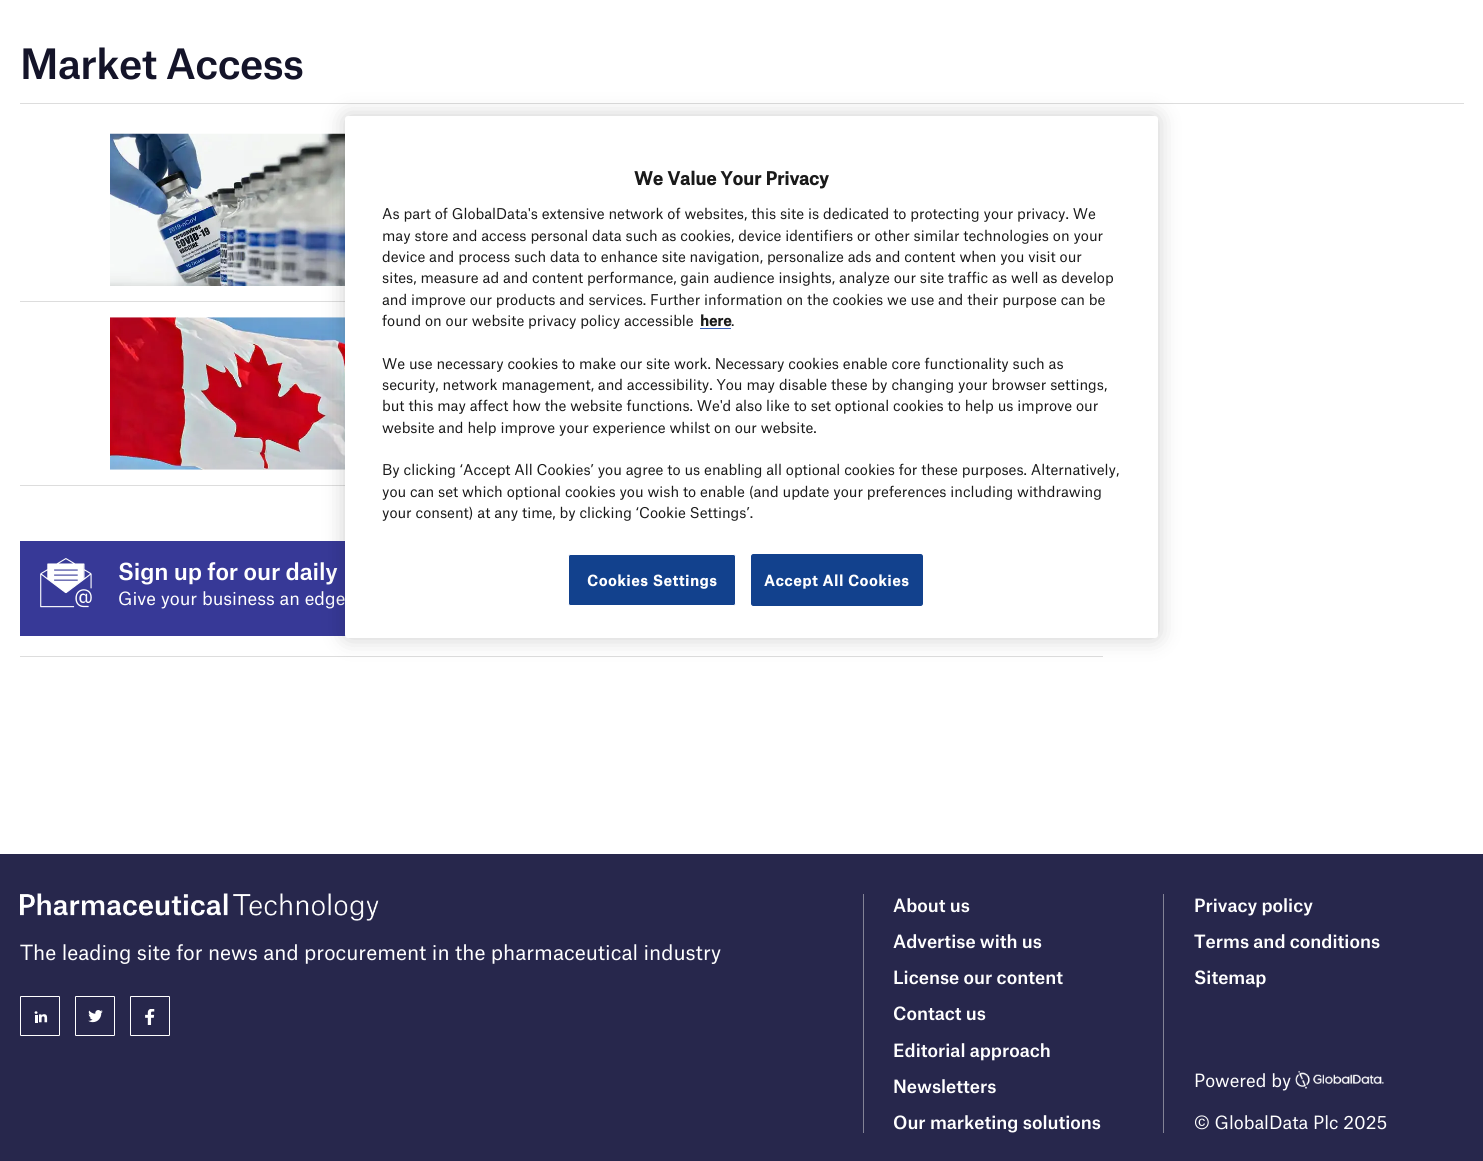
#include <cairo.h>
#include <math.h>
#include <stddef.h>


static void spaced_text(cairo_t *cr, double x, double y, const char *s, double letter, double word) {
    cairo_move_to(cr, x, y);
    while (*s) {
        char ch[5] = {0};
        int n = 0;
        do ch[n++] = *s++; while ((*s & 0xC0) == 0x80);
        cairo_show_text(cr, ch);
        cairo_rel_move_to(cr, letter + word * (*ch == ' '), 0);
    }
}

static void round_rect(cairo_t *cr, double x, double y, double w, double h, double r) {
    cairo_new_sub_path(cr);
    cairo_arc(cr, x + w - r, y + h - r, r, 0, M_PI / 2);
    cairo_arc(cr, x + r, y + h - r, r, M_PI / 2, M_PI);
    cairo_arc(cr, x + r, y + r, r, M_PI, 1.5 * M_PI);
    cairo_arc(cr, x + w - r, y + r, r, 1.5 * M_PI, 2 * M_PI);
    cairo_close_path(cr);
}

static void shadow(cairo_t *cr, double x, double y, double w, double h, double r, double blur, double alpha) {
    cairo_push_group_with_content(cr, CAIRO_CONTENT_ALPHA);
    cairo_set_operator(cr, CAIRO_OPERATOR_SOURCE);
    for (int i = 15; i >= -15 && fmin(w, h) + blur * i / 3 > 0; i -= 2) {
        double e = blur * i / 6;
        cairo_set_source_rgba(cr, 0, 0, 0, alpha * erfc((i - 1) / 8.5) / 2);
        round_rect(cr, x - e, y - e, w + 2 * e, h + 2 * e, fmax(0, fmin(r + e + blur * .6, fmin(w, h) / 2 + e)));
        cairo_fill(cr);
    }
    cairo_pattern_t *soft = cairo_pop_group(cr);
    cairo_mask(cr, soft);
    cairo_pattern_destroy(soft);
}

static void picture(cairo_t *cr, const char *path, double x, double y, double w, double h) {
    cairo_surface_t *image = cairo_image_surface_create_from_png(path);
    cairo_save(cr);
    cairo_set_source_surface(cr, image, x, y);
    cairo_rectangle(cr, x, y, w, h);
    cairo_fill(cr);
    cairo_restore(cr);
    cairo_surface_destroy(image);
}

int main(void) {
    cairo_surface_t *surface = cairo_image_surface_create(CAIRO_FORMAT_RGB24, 1483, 1161);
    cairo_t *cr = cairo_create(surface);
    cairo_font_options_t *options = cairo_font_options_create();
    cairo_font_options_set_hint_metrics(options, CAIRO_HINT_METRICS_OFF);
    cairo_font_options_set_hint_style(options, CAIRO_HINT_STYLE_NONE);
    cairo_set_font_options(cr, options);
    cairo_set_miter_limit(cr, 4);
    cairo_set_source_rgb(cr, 1, 1, 1);
    cairo_paint(cr);
    cairo_set_source_rgb(cr, 0.867, 0.867, 0.867);
    cairo_rectangle(cr, 20, 103, 1444, 1);
    cairo_fill(cr);
    cairo_select_font_face(cr, "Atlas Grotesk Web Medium", CAIRO_FONT_SLANT_NORMAL, CAIRO_FONT_WEIGHT_NORMAL);
    cairo_set_font_size(cr, 40);
    cairo_set_source_rgb(cr, 0.082, 0.082, 0.161);
    spaced_text(cr, 20, 79, "Market Access", -0.6, 0);
    cairo_set_source_rgb(cr, 0.867, 0.867, 0.867);
    cairo_rectangle(cr, 20, 301, 325, 1);
    cairo_fill(cr);
    picture(cr, "img1.png", 110, 133, 235, 153);
    cairo_rectangle(cr, 20, 485, 325, 1);
    cairo_fill(cr);
    picture(cr, "img2.png", 110, 317, 235, 153);
    cairo_set_source_rgb(cr, 0.216, 0.224, 0.592);
    cairo_rectangle(cr, 20, 541, 326, 95);
    cairo_fill(cr);
    picture(cr, "img3.png", 40, 558, 52, 50);
    cairo_set_font_size(cr, 22.5);
    cairo_set_source_rgb(cr, 1, 1, 1);
    spaced_text(cr, 118, 580, "Sign up for our daily", -0.1, 0);
    cairo_select_font_face(cr, "Atlas Grotesk Web", CAIRO_FONT_SLANT_NORMAL, CAIRO_FONT_WEIGHT_NORMAL);
    cairo_set_font_size(cr, 17.5);
    cairo_move_to(cr, 118, 605);
    cairo_show_text(cr, "Give your business an edge");
    cairo_set_source_rgb(cr, 0.867, 0.867, 0.867);
    cairo_rectangle(cr, 20, 656, 1083, 1);
    cairo_fill(cr);
    cairo_set_source_rgb(cr, 0, 0, 0);
    shadow(cr, 345, 116, 813, 522, 3, 11, 0.2);
    cairo_set_source_rgb(cr, 1, 1, 1);
    round_rect(cr, 345, 116, 813, 522, 3);
    cairo_fill(cr);
    cairo_select_font_face(cr, "Atlas Grotesk Web", CAIRO_FONT_SLANT_NORMAL, CAIRO_FONT_WEIGHT_BOLD);
    cairo_set_source_rgb(cr, 0.102, 0.102, 0.102);
    cairo_move_to(cr, 634, 185);
    cairo_show_text(cr, "We Value Your Privacy");
    cairo_select_font_face(cr, "Atlas Grotesk Web", CAIRO_FONT_SLANT_NORMAL, CAIRO_FONT_WEIGHT_NORMAL);
    cairo_set_font_size(cr, 14.23);
    cairo_move_to(cr, 382, 219);
    cairo_show_text(cr, "As part of GlobalData's extensive network of websites, this site is dedicated to protecting your privacy. We");
    cairo_move_to(cr, 382, 241);
    cairo_show_text(cr, "may store and access personal data such as cookies, device identifiers or other similar technologies on your");
    cairo_move_to(cr, 382, 262);
    cairo_show_text(cr, "device and process such data to enhance site navigation, personalize ads and content when you visit our");
    cairo_move_to(cr, 382, 283);
    cairo_show_text(cr, "sites, measure ad and content performance, gain audience insights, analyze our site traffic as well as develop");
    cairo_move_to(cr, 382, 305);
    cairo_show_text(cr, "and improve our products and services. Further information on the cookies we use and their purpose can be");
    cairo_move_to(cr, 382, 326);
    cairo_show_text(cr, "found on our website privacy policy accessible");
    cairo_select_font_face(cr, "Atlas Grotesk Web", CAIRO_FONT_SLANT_NORMAL, CAIRO_FONT_WEIGHT_BOLD);
    cairo_move_to(cr, 700, 326);
    cairo_show_text(cr, "here");
    cairo_set_source_rgb(cr, 0.22, 0.376, 0.745);
    cairo_rectangle(cr, 700, 328, 31, 1);
    cairo_fill(cr);
    cairo_select_font_face(cr, "Atlas Grotesk Web", CAIRO_FONT_SLANT_NORMAL, CAIRO_FONT_WEIGHT_NORMAL);
    cairo_set_source_rgb(cr, 0.102, 0.102, 0.102);
    cairo_move_to(cr, 731, 326);
    cairo_show_text(cr, ".");
    cairo_move_to(cr, 382, 369);
    cairo_show_text(cr, "We use necessary cookies to make our site work. Necessary cookies enable core functionality such as");
    cairo_move_to(cr, 382, 390);
    cairo_show_text(cr, "security, network management, and accessibility. You may disable these by changing your browser settings,");
    cairo_move_to(cr, 382, 411);
    cairo_show_text(cr, "but this may affect how the website functions. We'd also like to set optional cookies to help us improve our");
    cairo_move_to(cr, 382, 433);
    cairo_show_text(cr, "website and help improve your experience whilst on our website.");
    cairo_move_to(cr, 382, 475);
    cairo_show_text(cr, "By clicking ‘Accept All Cookies’ you agree to us enabling all optional cookies for these purposes. Alternatively,");
    cairo_move_to(cr, 382, 497);
    cairo_show_text(cr, "you can set which optional cookies you wish to enable (and update your preferences including withdrawing");
    cairo_move_to(cr, 382, 518);
    cairo_show_text(cr, "your consent) at any time, by clicking ‘Cookie Settings’.");
    cairo_set_source_rgb(cr, 0.071, 0.255, 0.553);
    round_rect(cr, 568.5, 554.5, 167, 51, 2);
    cairo_fill_preserve(cr);
    cairo_set_source_rgb(cr, 1, 1, 1);
    cairo_set_line_width(cr, 1);
    cairo_stroke(cr);
    cairo_select_font_face(cr, "Atlas Grotesk Web", CAIRO_FONT_SLANT_NORMAL, CAIRO_FONT_WEIGHT_BOLD);
    spaced_text(cr, 587, 586, "Cookies Settings", 0.75, 0);
    cairo_set_source_rgb(cr, 0.071, 0.255, 0.553);
    round_rect(cr, 751.5, 554.5, 171, 51, 2);
    cairo_fill_preserve(cr);
    cairo_stroke(cr);
    cairo_set_source_rgb(cr, 1, 1, 1);
    spaced_text(cr, 764, 586, "Accept All Cookies", 0.75, 0);
    cairo_set_source_rgb(cr, 0.153, 0.153, 0.298);
    cairo_rectangle(cr, 0, 854, 1483, 307);
    cairo_fill(cr);
    picture(cr, "img4.png", 20, 893, 359, 28);
    cairo_select_font_face(cr, "Atlas Grotesk Web", CAIRO_FONT_SLANT_NORMAL, CAIRO_FONT_WEIGHT_NORMAL);
    cairo_set_font_size(cr, 20);
    cairo_set_source_rgb(cr, 1, 1, 1);
    cairo_move_to(cr, 20, 960);
    cairo_show_text(cr, "The leading site for news and procurement in the pharmaceutical industry");
    round_rect(cr, 20.5, 996.5, 39, 39, 0.5);
    cairo_stroke(cr);
    picture(cr, "img5.png", 34, 1011, 14, 12);
    round_rect(cr, 75.5, 996.5, 39, 39, 0.5);
    cairo_stroke(cr);
    picture(cr, "img6.png", 88, 1010, 15, 13);
    round_rect(cr, 130.5, 996.5, 39, 39, 0.5);
    cairo_stroke(cr);
    picture(cr, "img7.png", 145, 1009, 10, 16);
    cairo_set_source_rgb(cr, 0.51, 0.51, 0.584);
    cairo_rectangle(cr, 863, 894, 1, 239);
    cairo_fill(cr);
    cairo_select_font_face(cr, "Atlas Grotesk Web Medium", CAIRO_FONT_SLANT_NORMAL, CAIRO_FONT_WEIGHT_NORMAL);
    cairo_set_font_size(cr, 17.5);
    cairo_set_source_rgb(cr, 1, 1, 1);
    cairo_move_to(cr, 893, 912);
    cairo_show_text(cr, "About us");
    cairo_move_to(cr, 893, 948);
    cairo_show_text(cr, "Advertise with us");
    cairo_move_to(cr, 893, 984);
    cairo_show_text(cr, "License our content");
    cairo_move_to(cr, 893, 1020);
    cairo_show_text(cr, "Contact us");
    cairo_move_to(cr, 893, 1057);
    cairo_show_text(cr, "Editorial approach");
    cairo_move_to(cr, 893, 1093);
    cairo_show_text(cr, "Newsletters");
    cairo_move_to(cr, 893, 1129);
    cairo_show_text(cr, "Our marketing solutions");
    cairo_set_source_rgb(cr, 0.51, 0.51, 0.584);
    cairo_rectangle(cr, 1163, 894, 1, 239);
    cairo_fill(cr);
    cairo_set_source_rgb(cr, 1, 1, 1);
    cairo_move_to(cr, 1194, 912);
    cairo_show_text(cr, "Privacy policy");
    cairo_move_to(cr, 1194, 948);
    cairo_show_text(cr, "Terms and conditions");
    cairo_move_to(cr, 1194, 984);
    cairo_show_text(cr, "Sitemap");
    cairo_select_font_face(cr, "Atlas Grotesk Web", CAIRO_FONT_SLANT_NORMAL, CAIRO_FONT_WEIGHT_NORMAL);
    cairo_move_to(cr, 1194, 1087);
    cairo_show_text(cr, "Powered by");
    picture(cr, "img8.png", 1295, 1071, 89, 18);
    cairo_move_to(cr, 1194, 1129);
    cairo_show_text(cr, "© GlobalData Plc 2025");
    cairo_surface_write_to_png(surface, "page.png");
    cairo_font_options_destroy(options);
    cairo_destroy(cr);
    cairo_surface_destroy(surface);
    return 0;
}
